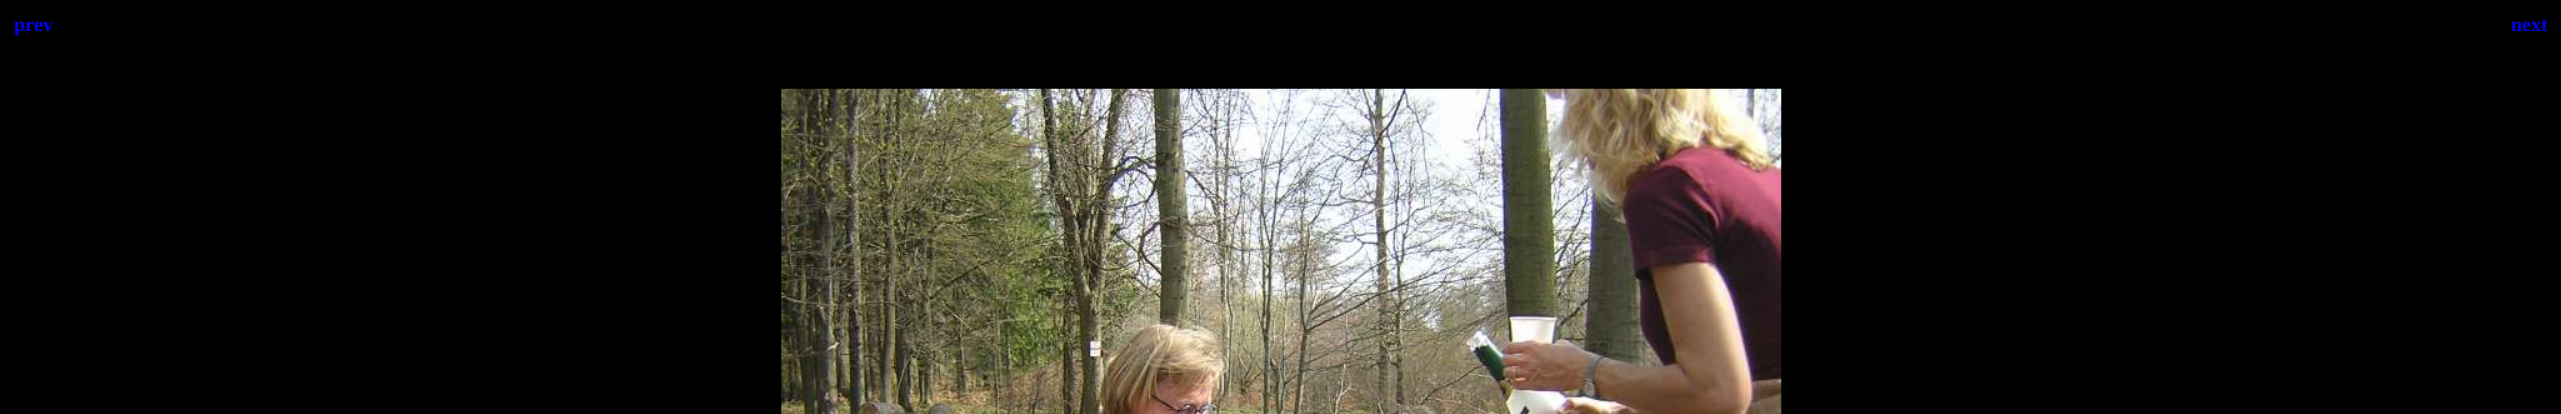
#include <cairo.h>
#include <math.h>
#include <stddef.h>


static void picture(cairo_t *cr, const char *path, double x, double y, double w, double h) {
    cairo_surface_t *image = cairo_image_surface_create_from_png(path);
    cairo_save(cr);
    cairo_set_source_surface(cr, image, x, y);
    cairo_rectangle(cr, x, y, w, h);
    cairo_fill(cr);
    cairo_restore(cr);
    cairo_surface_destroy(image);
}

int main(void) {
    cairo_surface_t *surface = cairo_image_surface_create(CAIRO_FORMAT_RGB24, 2561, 414);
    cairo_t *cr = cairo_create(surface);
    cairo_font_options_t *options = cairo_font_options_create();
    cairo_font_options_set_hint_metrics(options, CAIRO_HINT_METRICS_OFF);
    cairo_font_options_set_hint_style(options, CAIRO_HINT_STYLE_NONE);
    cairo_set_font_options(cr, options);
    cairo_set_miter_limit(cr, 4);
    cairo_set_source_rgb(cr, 0, 0, 0);
    cairo_paint(cr);
    cairo_select_font_face(cr, "Liberation Serif", CAIRO_FONT_SLANT_NORMAL, CAIRO_FONT_WEIGHT_BOLD);
    cairo_set_font_size(cr, 20);
    cairo_set_source_rgb(cr, 0, 0, 0.933);
    cairo_move_to(cr, 14, 31);
    cairo_show_text(cr, "prev");
    cairo_move_to(cr, 2511, 31);
    cairo_show_text(cr, "next");
    picture(cr, "img1.png", 781, 88, 1001, 326);
    cairo_surface_write_to_png(surface, "page.png");
    cairo_font_options_destroy(options);
    cairo_destroy(cr);
    cairo_surface_destroy(surface);
    return 0;
}
